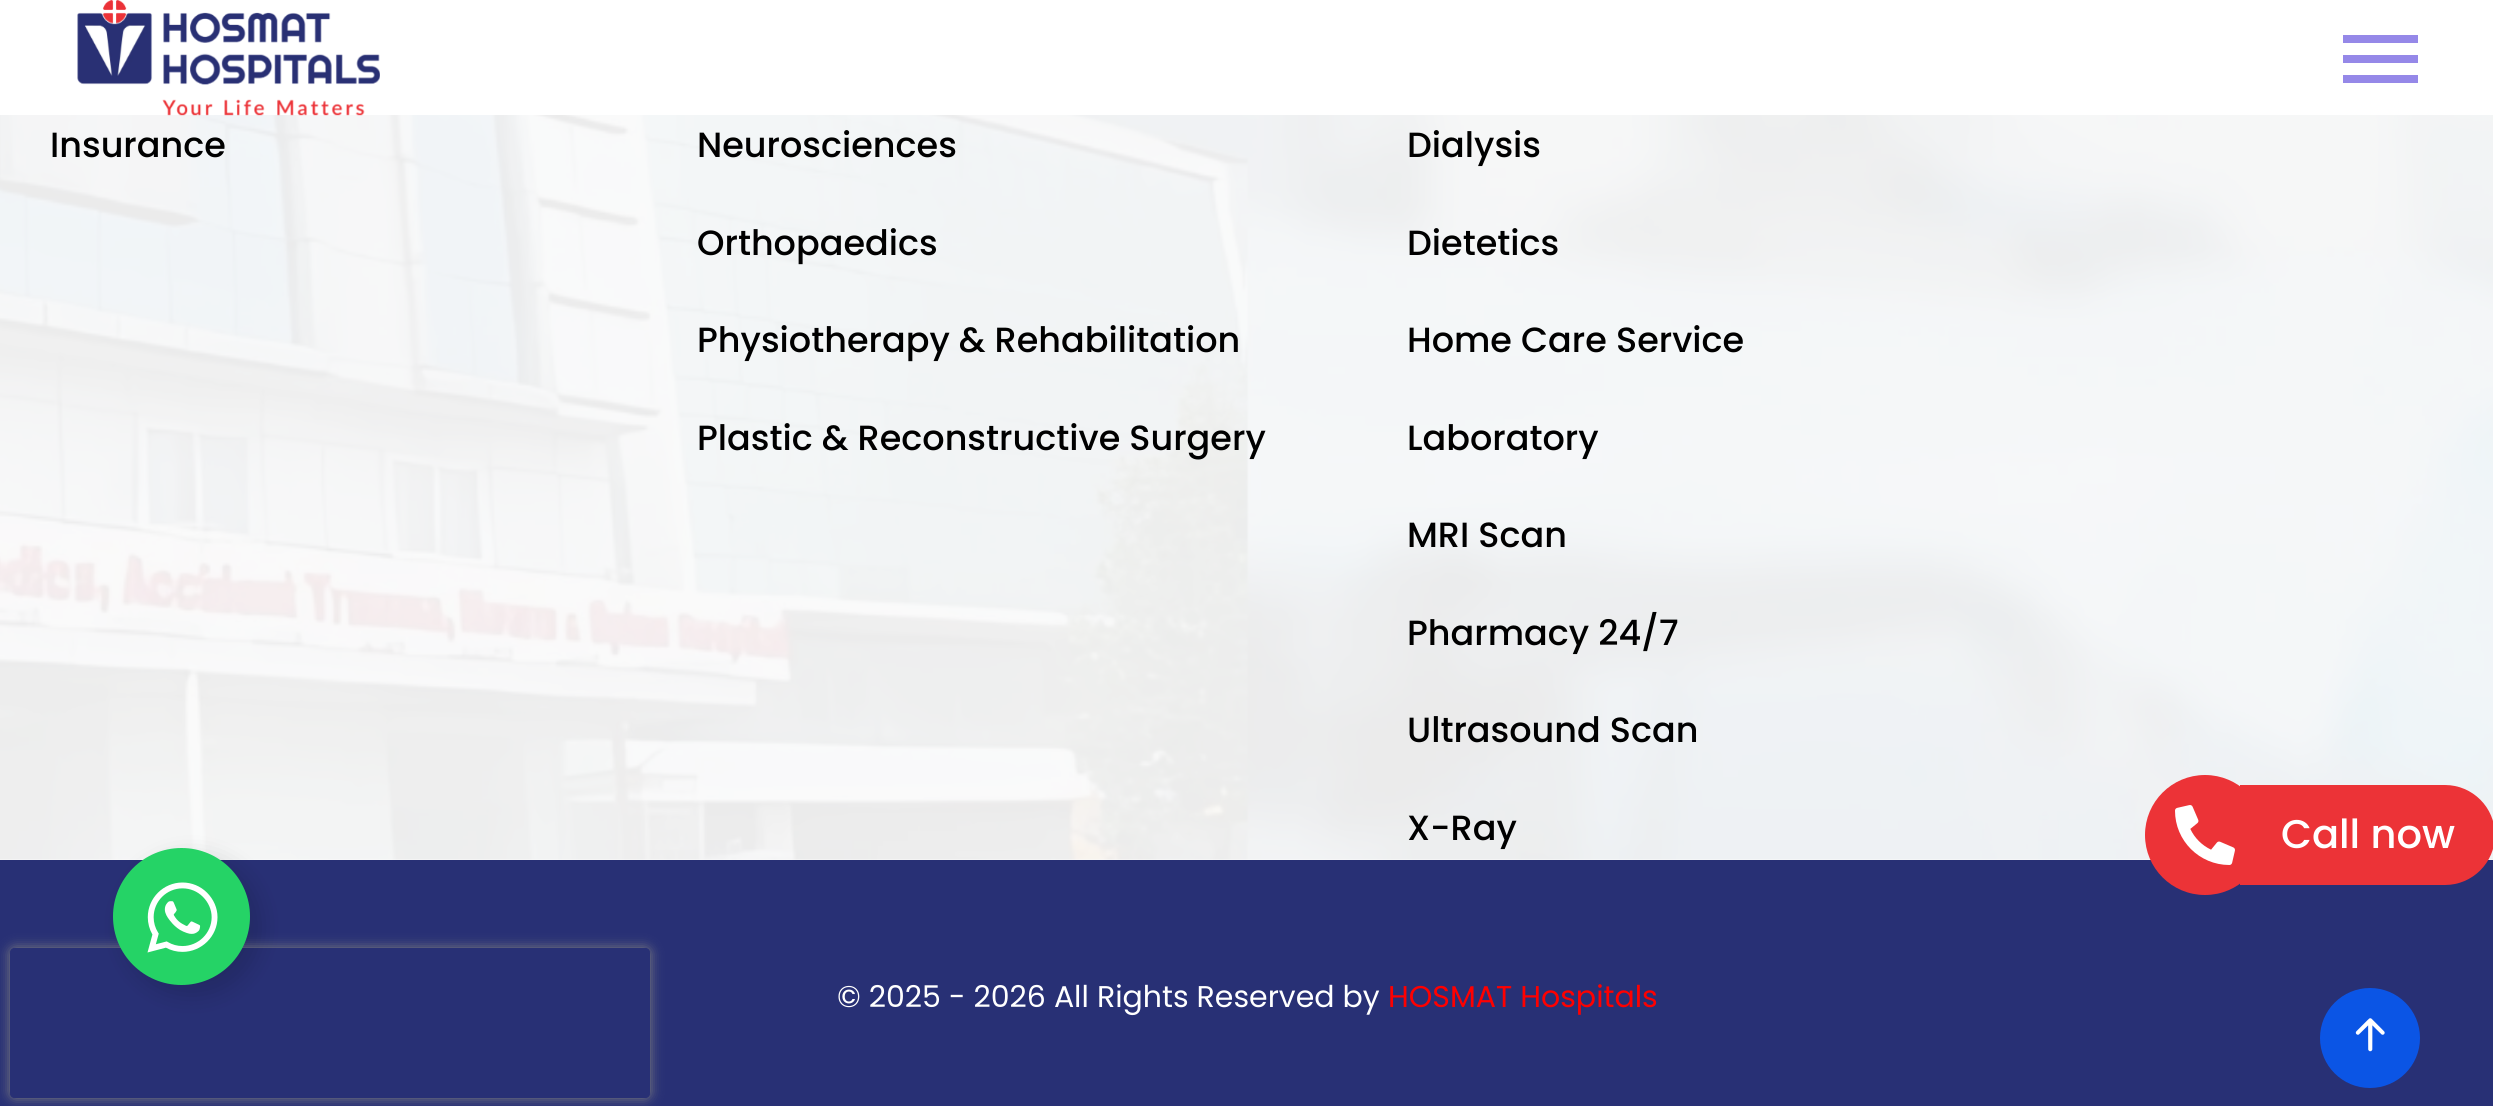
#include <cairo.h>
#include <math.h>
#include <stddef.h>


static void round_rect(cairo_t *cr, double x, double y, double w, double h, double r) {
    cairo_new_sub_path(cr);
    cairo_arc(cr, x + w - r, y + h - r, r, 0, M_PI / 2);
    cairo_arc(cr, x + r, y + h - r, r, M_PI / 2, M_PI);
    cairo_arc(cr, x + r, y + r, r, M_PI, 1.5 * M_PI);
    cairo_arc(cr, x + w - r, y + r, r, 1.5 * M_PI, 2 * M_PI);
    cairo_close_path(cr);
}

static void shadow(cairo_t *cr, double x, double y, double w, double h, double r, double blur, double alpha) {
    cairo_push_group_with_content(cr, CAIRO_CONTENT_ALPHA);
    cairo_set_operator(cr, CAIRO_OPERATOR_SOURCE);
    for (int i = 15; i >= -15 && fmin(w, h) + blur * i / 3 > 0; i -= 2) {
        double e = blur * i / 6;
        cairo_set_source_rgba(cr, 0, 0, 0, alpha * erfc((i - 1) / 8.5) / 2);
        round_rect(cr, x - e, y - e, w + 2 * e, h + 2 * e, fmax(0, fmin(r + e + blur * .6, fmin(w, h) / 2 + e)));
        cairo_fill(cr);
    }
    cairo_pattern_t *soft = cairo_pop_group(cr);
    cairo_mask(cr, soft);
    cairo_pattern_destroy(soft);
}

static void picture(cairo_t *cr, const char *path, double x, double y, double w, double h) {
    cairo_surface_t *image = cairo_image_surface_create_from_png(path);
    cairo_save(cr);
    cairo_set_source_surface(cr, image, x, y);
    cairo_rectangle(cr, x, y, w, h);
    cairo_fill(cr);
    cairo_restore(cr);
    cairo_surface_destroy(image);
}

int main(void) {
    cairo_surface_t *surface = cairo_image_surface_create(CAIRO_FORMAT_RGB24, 2493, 1106);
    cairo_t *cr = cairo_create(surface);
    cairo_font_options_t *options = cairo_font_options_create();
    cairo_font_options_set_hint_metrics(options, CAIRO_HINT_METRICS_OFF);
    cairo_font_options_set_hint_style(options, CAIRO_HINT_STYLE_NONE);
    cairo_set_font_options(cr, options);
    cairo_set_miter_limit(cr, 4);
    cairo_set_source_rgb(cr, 0.98, 0.98, 0.98);
    cairo_paint(cr);
    cairo_set_source_rgb(cr, 1, 1, 1);
    cairo_rectangle(cr, 0, 0, 2493, 115);
    cairo_fill(cr);
    picture(cr, "img2.png", 0, 115, 2493, 745);
    picture(cr, "img1.png", 77, 0, 303, 116);
    cairo_set_source_rgb(cr, 0.584, 0.533, 0.91);
    cairo_rectangle(cr, 2343, 35, 75, 8);
    cairo_fill(cr);
    cairo_rectangle(cr, 2343, 55, 75, 8);
    cairo_fill(cr);
    cairo_rectangle(cr, 2343, 75, 75, 8);
    cairo_fill(cr);
    cairo_select_font_face(cr, "Poppins Medium", CAIRO_FONT_SLANT_NORMAL, CAIRO_FONT_WEIGHT_NORMAL);
    cairo_set_font_size(cr, 35);
    cairo_set_source_rgb(cr, 0, 0, 0);
    cairo_move_to(cr, 50, 157);
    cairo_show_text(cr, "Insurance");
    cairo_move_to(cr, 697, 157);
    cairo_show_text(cr, "Neurosciences");
    cairo_move_to(cr, 697, 255);
    cairo_show_text(cr, "Orthopaedics");
    cairo_move_to(cr, 697, 352);
    cairo_show_text(cr, "Physiotherapy & Rehabilitation");
    cairo_move_to(cr, 697, 450);
    cairo_show_text(cr, "Plastic & Reconstructive Surgery");
    cairo_move_to(cr, 1407, 157);
    cairo_show_text(cr, "Dialysis");
    cairo_move_to(cr, 1407, 255);
    cairo_show_text(cr, "Dietetics");
    cairo_move_to(cr, 1407, 352);
    cairo_show_text(cr, "Home Care Service");
    cairo_move_to(cr, 1407, 450);
    cairo_show_text(cr, "Laboratory");
    cairo_move_to(cr, 1407, 547);
    cairo_show_text(cr, "MRI Scan");
    cairo_move_to(cr, 1407, 645);
    cairo_show_text(cr, "Pharmacy 24/7");
    cairo_move_to(cr, 1407, 742);
    cairo_show_text(cr, "Ultrasound Scan");
    cairo_move_to(cr, 1407, 840);
    cairo_show_text(cr, "X-Ray");
    cairo_set_source_rgb(cr, 0.157, 0.188, 0.459);
    cairo_rectangle(cr, 0, 860, 2493, 246);
    cairo_fill(cr);
    cairo_select_font_face(cr, "Poppins", CAIRO_FONT_SLANT_NORMAL, CAIRO_FONT_WEIGHT_NORMAL);
    cairo_set_font_size(cr, 30);
    cairo_set_source_rgb(cr, 1, 1, 1);
    cairo_move_to(cr, 837, 1007);
    cairo_show_text(cr, "© 2025 - 2026 All Rights Reserved by");
    cairo_set_source_rgb(cr, 1, 0, 0);
    cairo_move_to(cr, 1388, 1007);
    cairo_show_text(cr, "HOSMAT Hospitals");
    cairo_set_source_rgb(cr, 0.043, 0.333, 0.898);
    cairo_new_path(cr);
    cairo_arc(cr, 2370, 1038, 50, 0, 2 * M_PI);
    cairo_fill(cr);
    picture(cr, "img3.png", 2355, 1018, 30, 34);
    cairo_set_source_rgb(cr, 0.925, 0.2, 0.216);
    cairo_new_path(cr);
    cairo_move_to(cr, 2240, 785);
    cairo_line_to(cr, 2445, 785);
    cairo_curve_to(cr, 2472.5, 785, 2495, 807.5, 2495, 835);
    cairo_curve_to(cr, 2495, 862.5, 2472.5, 885, 2445, 885);
    cairo_line_to(cr, 2240, 885);
    cairo_close_path(cr);
    cairo_fill(cr);
    cairo_arc(cr, 2205, 835, 60, 0, 2 * M_PI);
    cairo_fill(cr);
    picture(cr, "img4.png", 2175, 805, 60, 60);
    cairo_select_font_face(cr, "Poppins Medium", CAIRO_FONT_SLANT_NORMAL, CAIRO_FONT_WEIGHT_NORMAL);
    cairo_set_font_size(cr, 40);
    cairo_set_source_rgb(cr, 1, 1, 1);
    cairo_move_to(cr, 2281, 848);
    cairo_show_text(cr, "Call now");
    cairo_set_source_rgb(cr, 0, 0, 0);
    shadow(cr, 123, 858, 137, 137, 68.5, 12.5, 0.15);
    cairo_save(cr);
    cairo_set_fill_rule(cr, CAIRO_FILL_RULE_EVEN_ODD);
    cairo_new_path(cr);
    cairo_move_to(cr, 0, 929);
    cairo_line_to(cr, 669, 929);
    cairo_line_to(cr, 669, 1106);
    cairo_line_to(cr, 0, 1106);
    cairo_close_path(cr);
    cairo_move_to(cr, 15, 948);
    cairo_line_to(cr, 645, 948);
    cairo_curve_to(cr, 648, 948, 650, 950, 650, 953);
    cairo_line_to(cr, 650, 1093);
    cairo_curve_to(cr, 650, 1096, 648, 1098, 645, 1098);
    cairo_line_to(cr, 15, 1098);
    cairo_curve_to(cr, 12, 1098, 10, 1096, 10, 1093);
    cairo_line_to(cr, 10, 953);
    cairo_curve_to(cr, 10, 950, 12, 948, 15, 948);
    cairo_close_path(cr);
    cairo_clip(cr);
    cairo_set_source_rgb(cr, 0.502, 0.502, 0.502);
    shadow(cr, 10, 948, 640, 150, 5, 6, 1);
    cairo_restore(cr);
    cairo_set_source_rgb(cr, 0.145, 0.827, 0.4);
    cairo_arc(cr, 181.5, 916.5, 68.5, 0, 2 * M_PI);
    cairo_fill(cr);
    picture(cr, "img5.png", 147, 882, 71, 71);
    cairo_surface_write_to_png(surface, "page.png");
    cairo_font_options_destroy(options);
    cairo_destroy(cr);
    cairo_surface_destroy(surface);
    return 0;
}
